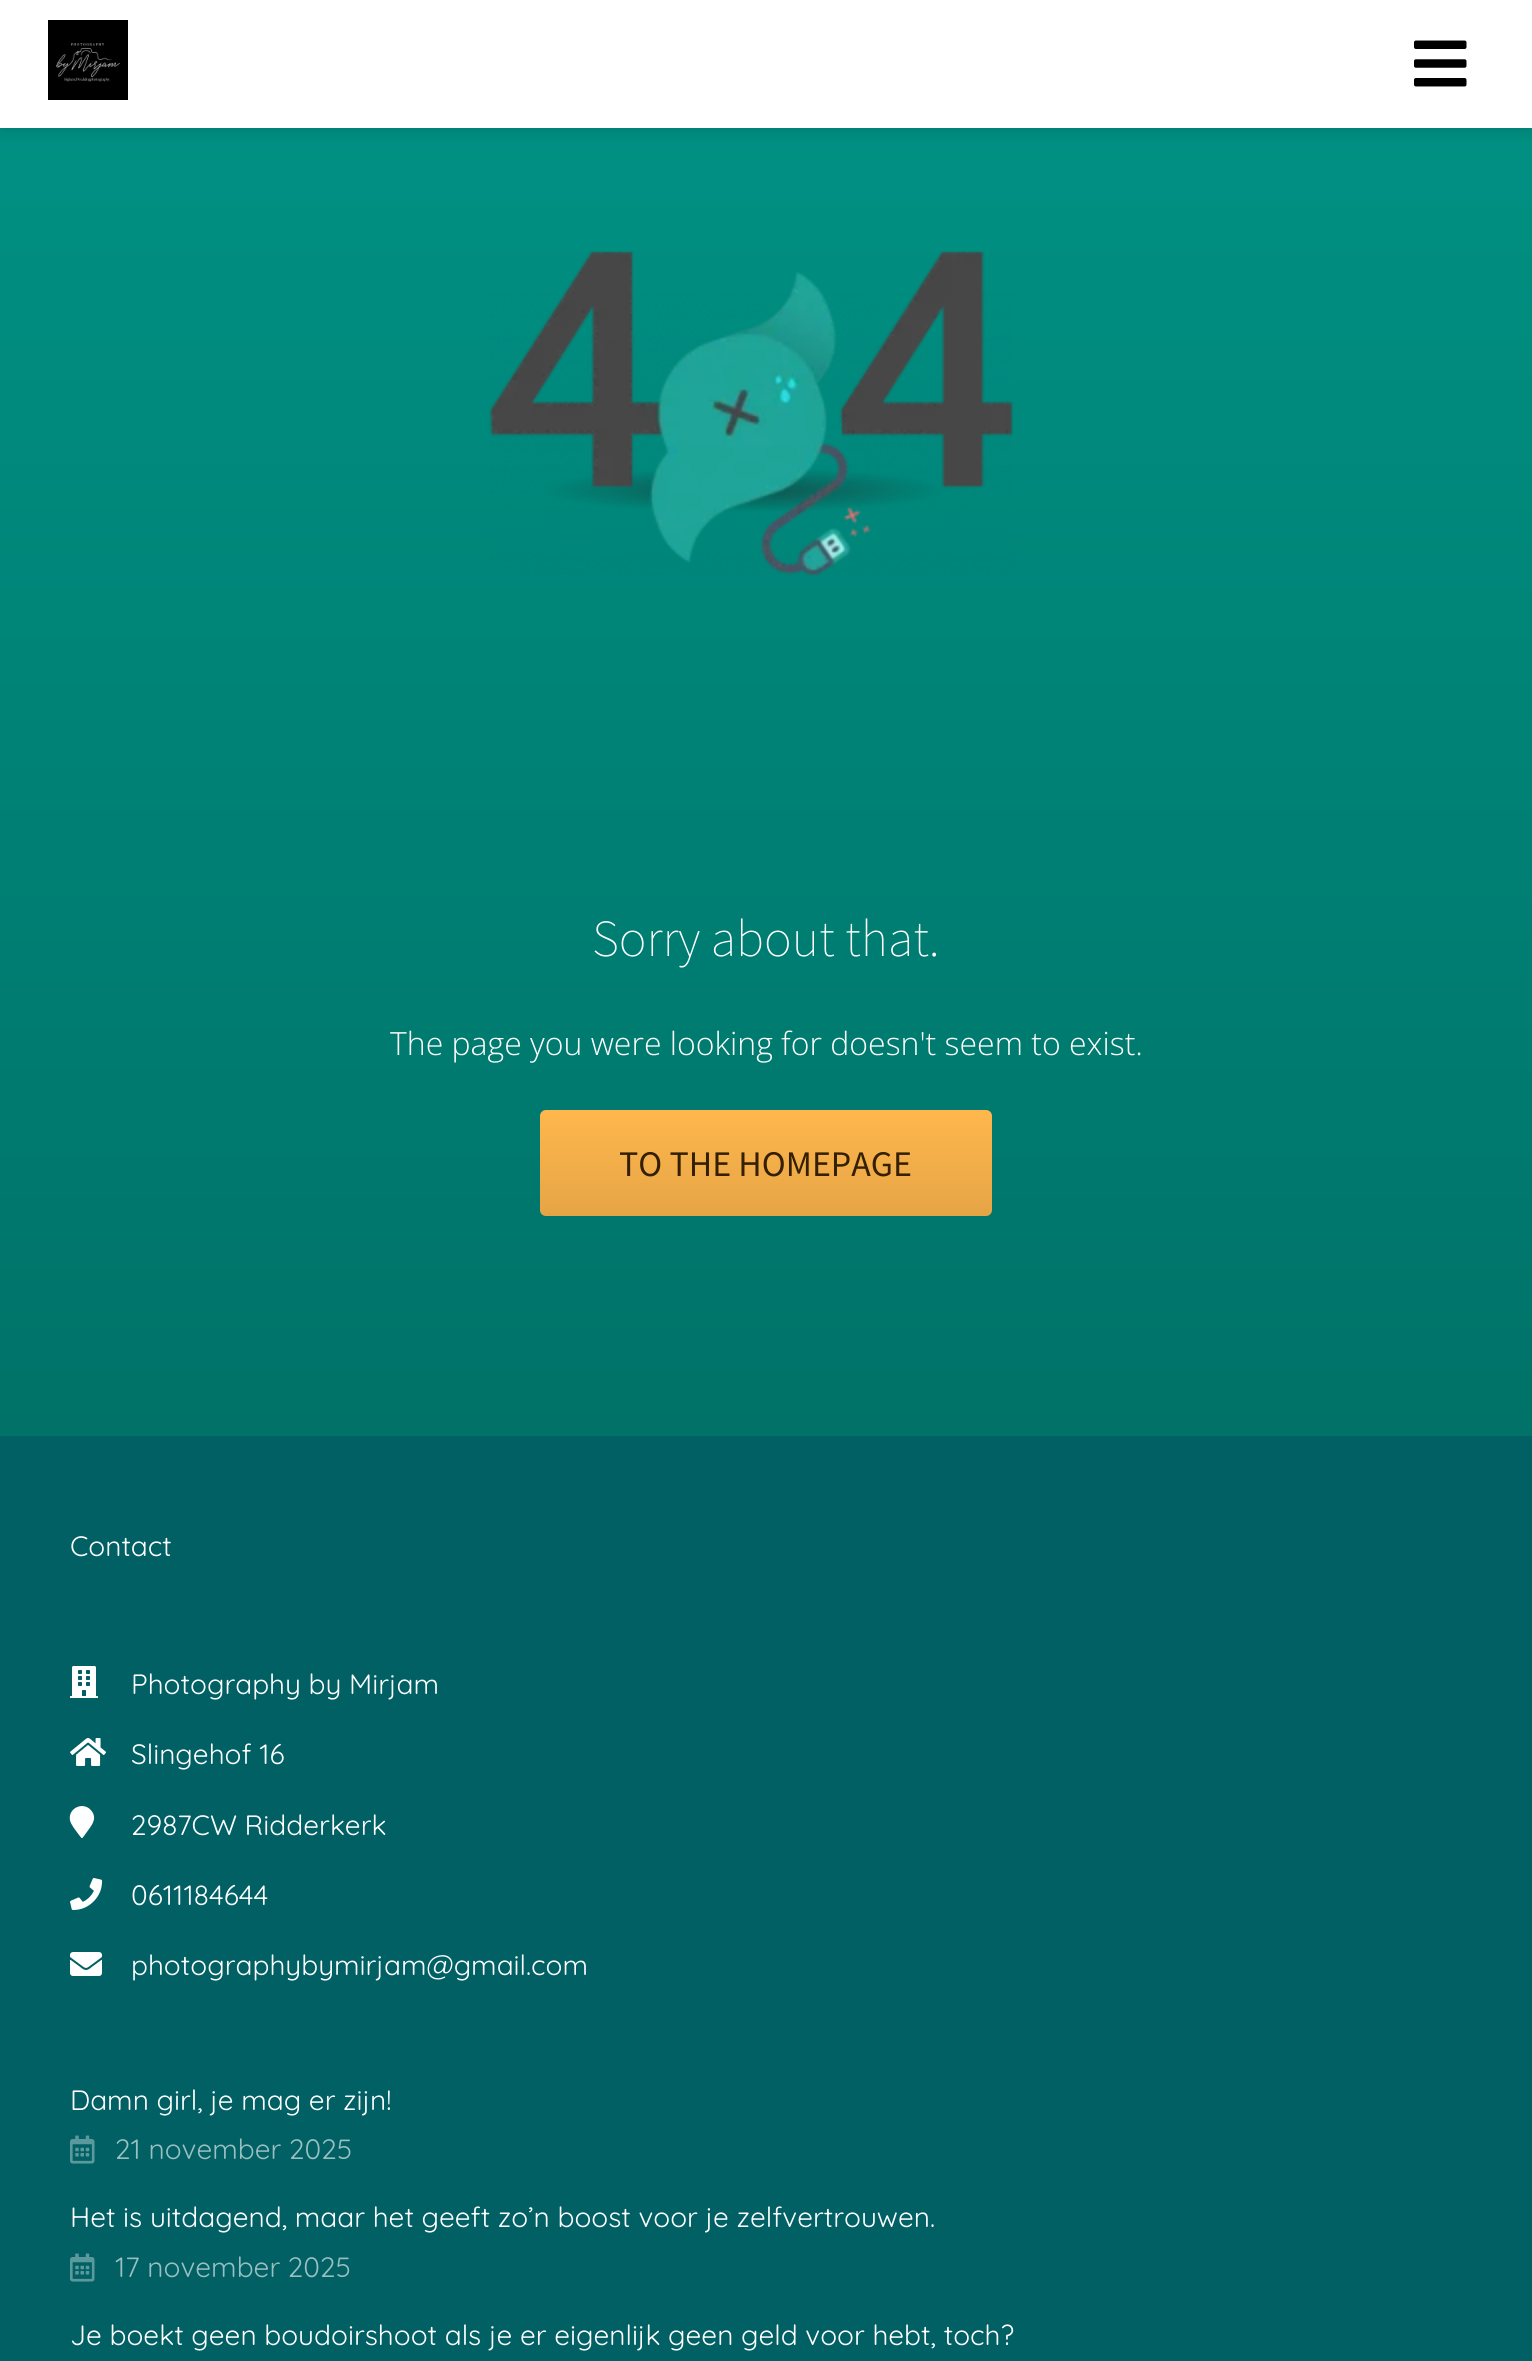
#include <cairo.h>
#include <math.h>
#include <stddef.h>


static void round_rect(cairo_t *cr, double x, double y, double w, double h, double r) {
    cairo_new_sub_path(cr);
    cairo_arc(cr, x + w - r, y + h - r, r, 0, M_PI / 2);
    cairo_arc(cr, x + r, y + h - r, r, M_PI / 2, M_PI);
    cairo_arc(cr, x + r, y + r, r, M_PI, 1.5 * M_PI);
    cairo_arc(cr, x + w - r, y + r, r, 1.5 * M_PI, 2 * M_PI);
    cairo_close_path(cr);
}

static void shadow(cairo_t *cr, double x, double y, double w, double h, double r, double blur, double alpha) {
    cairo_push_group_with_content(cr, CAIRO_CONTENT_ALPHA);
    cairo_set_operator(cr, CAIRO_OPERATOR_SOURCE);
    for (int i = 15; i >= -15 && fmin(w, h) + blur * i / 3 > 0; i -= 2) {
        double e = blur * i / 6;
        cairo_set_source_rgba(cr, 0, 0, 0, alpha * erfc((i - 1) / 8.5) / 2);
        round_rect(cr, x - e, y - e, w + 2 * e, h + 2 * e, fmax(0, fmin(r + e + blur * .6, fmin(w, h) / 2 + e)));
        cairo_fill(cr);
    }
    cairo_pattern_t *soft = cairo_pop_group(cr);
    cairo_mask(cr, soft);
    cairo_pattern_destroy(soft);
}

static void picture(cairo_t *cr, const char *path, double x, double y, double w, double h) {
    cairo_surface_t *image = cairo_image_surface_create_from_png(path);
    cairo_save(cr);
    cairo_set_source_surface(cr, image, x, y);
    cairo_rectangle(cr, x, y, w, h);
    cairo_fill(cr);
    cairo_restore(cr);
    cairo_surface_destroy(image);
}

int main(void) {
    cairo_surface_t *surface = cairo_image_surface_create(CAIRO_FORMAT_RGB24, 1532, 2361);
    cairo_t *cr = cairo_create(surface);
    cairo_font_options_t *options = cairo_font_options_create();
    cairo_font_options_set_hint_metrics(options, CAIRO_HINT_METRICS_OFF);
    cairo_font_options_set_hint_style(options, CAIRO_HINT_STYLE_NONE);
    cairo_set_font_options(cr, options);
    cairo_set_miter_limit(cr, 4);
    cairo_pattern_t *gradient;
    cairo_set_source_rgb(cr, 0, 0.376, 0.392);
    cairo_paint(cr);
    gradient = cairo_pattern_create_linear(766, -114, 766, 1436);
    cairo_pattern_add_color_stop_rgba(gradient, 0, 0, 0.588, 0.533, 1);
    cairo_pattern_add_color_stop_rgba(gradient, 1, 0, 0.447, 0.408, 1);
    cairo_set_source(cr, gradient);
    cairo_pattern_destroy(gradient);
    cairo_rectangle(cr, 0, 128, 1532, 1308);
    cairo_fill(cr);
    cairo_set_source_rgb(cr, 0, 0, 0);
    shadow(cr, 0, 0, 1532, 128, 0, 10, 0.2);
    cairo_set_source_rgb(cr, 1, 1, 1);
    cairo_rectangle(cr, 0, 0, 1532, 128);
    cairo_fill(cr);
    picture(cr, "img1.png", 48, 20, 80, 80);
    picture(cr, "img2.png", 1414, 40, 53, 47);
    picture(cr, "img3.png", 489, 251, 524, 325);
    cairo_select_font_face(cr, "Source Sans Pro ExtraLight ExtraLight", CAIRO_FONT_SLANT_NORMAL, CAIRO_FONT_WEIGHT_NORMAL);
    cairo_set_font_size(cr, 52);
    cairo_move_to(cr, 592, 956);
    cairo_show_text(cr, "Sorry about that.");
    cairo_select_font_face(cr, "Open Sans Light", CAIRO_FONT_SLANT_NORMAL, CAIRO_FONT_WEIGHT_NORMAL);
    cairo_set_font_size(cr, 32);
    cairo_move_to(cr, 390, 1055);
    cairo_show_text(cr, "The page you were looking for doesn't seem to exist.");
    cairo_set_source_rgb(cr, 1, 0.718, 0.302);
    round_rect(cr, 540, 1110, 452, 106, 6);
    cairo_fill(cr);
    gradient = cairo_pattern_create_linear(766, 1110, 766, 1216);
    cairo_pattern_add_color_stop_rgba(gradient, 0, 0, 0, 0, 0);
    cairo_pattern_add_color_stop_rgba(gradient, 1, 0, 0, 0, 0.1);
    cairo_set_source(cr, gradient);
    cairo_pattern_destroy(gradient);
    round_rect(cr, 540, 1110, 452, 106, 6);
    cairo_fill(cr);
    cairo_select_font_face(cr, "Source Sans Pro", CAIRO_FONT_SLANT_NORMAL, CAIRO_FONT_WEIGHT_NORMAL);
    cairo_set_font_size(cr, 36);
    cairo_set_source_rgb(cr, 0.204, 0.122, 0);
    cairo_move_to(cr, 619, 1176);
    cairo_show_text(cr, "TO THE HOMEPAGE");
    cairo_select_font_face(cr, "Quicksand", CAIRO_FONT_SLANT_NORMAL, CAIRO_FONT_WEIGHT_NORMAL);
    cairo_set_font_size(cr, 28);
    cairo_set_source_rgb(cr, 1, 1, 1);
    cairo_move_to(cr, 70, 1556);
    cairo_show_text(cr, "Contact");
    picture(cr, "img4.png", 70, 1666, 28, 32);
    cairo_move_to(cr, 131, 1694);
    cairo_show_text(cr, "Photography by Mirjam");
    picture(cr, "img5.png", 70, 1738, 36, 28);
    cairo_move_to(cr, 131, 1764);
    cairo_show_text(cr, "Slingehof 16");
    cairo_new_path(cr);
    cairo_move_to(cr, 81, 1837.5);
    cairo_curve_to(cr, 78, 1833.5, 71, 1825, 70, 1820.5);
    cairo_curve_to(cr, 67.5, 1807.5, 84.5, 1800.5, 92, 1811.5);
    cairo_curve_to(cr, 97.5, 1819.5, 91, 1826, 86.5, 1832.5);
    cairo_line_to(cr, 82.5, 1838);
    cairo_curve_to(cr, 82, 1838, 81, 1838, 81, 1837.5);
    cairo_close_path(cr);
    cairo_fill(cr);
    cairo_move_to(cr, 131, 1835);
    cairo_show_text(cr, "2987CW Ridderkerk");
    picture(cr, "img6.png", 70, 1878, 33, 32);
    cairo_move_to(cr, 131, 1905);
    cairo_show_text(cr, "0611184644");
    picture(cr, "img7.png", 70, 1952, 32, 24);
    cairo_move_to(cr, 131, 1975);
    cairo_show_text(cr, "photographybymirjam@gmail.com");
    cairo_move_to(cr, 70, 2110);
    cairo_show_text(cr, "Damn girl, je mag er zijn!");
    picture(cr, "img8.png", 70, 2135, 25, 29);
    cairo_set_source_rgb(cr, 0.6, 0.749, 0.757);
    cairo_move_to(cr, 115, 2159);
    cairo_show_text(cr, "21 november 2025");
    cairo_set_source_rgb(cr, 1, 1, 1);
    cairo_move_to(cr, 70, 2227);
    cairo_show_text(cr, "Het is uitdagend, maar het geeft zo’n boost voor je zelfvertrouwen.");
    picture(cr, "img8.png", 70, 2253, 25, 29);
    cairo_set_source_rgb(cr, 0.6, 0.749, 0.757);
    cairo_move_to(cr, 115, 2277);
    cairo_show_text(cr, "17 november 2025");
    cairo_set_source_rgb(cr, 1, 1, 1);
    cairo_move_to(cr, 70, 2345);
    cairo_show_text(cr, "Je boekt geen boudoirshoot als je er eigenlijk geen geld voor hebt, toch?");
    cairo_surface_write_to_png(surface, "page.png");
    cairo_font_options_destroy(options);
    cairo_destroy(cr);
    cairo_surface_destroy(surface);
    return 0;
}
